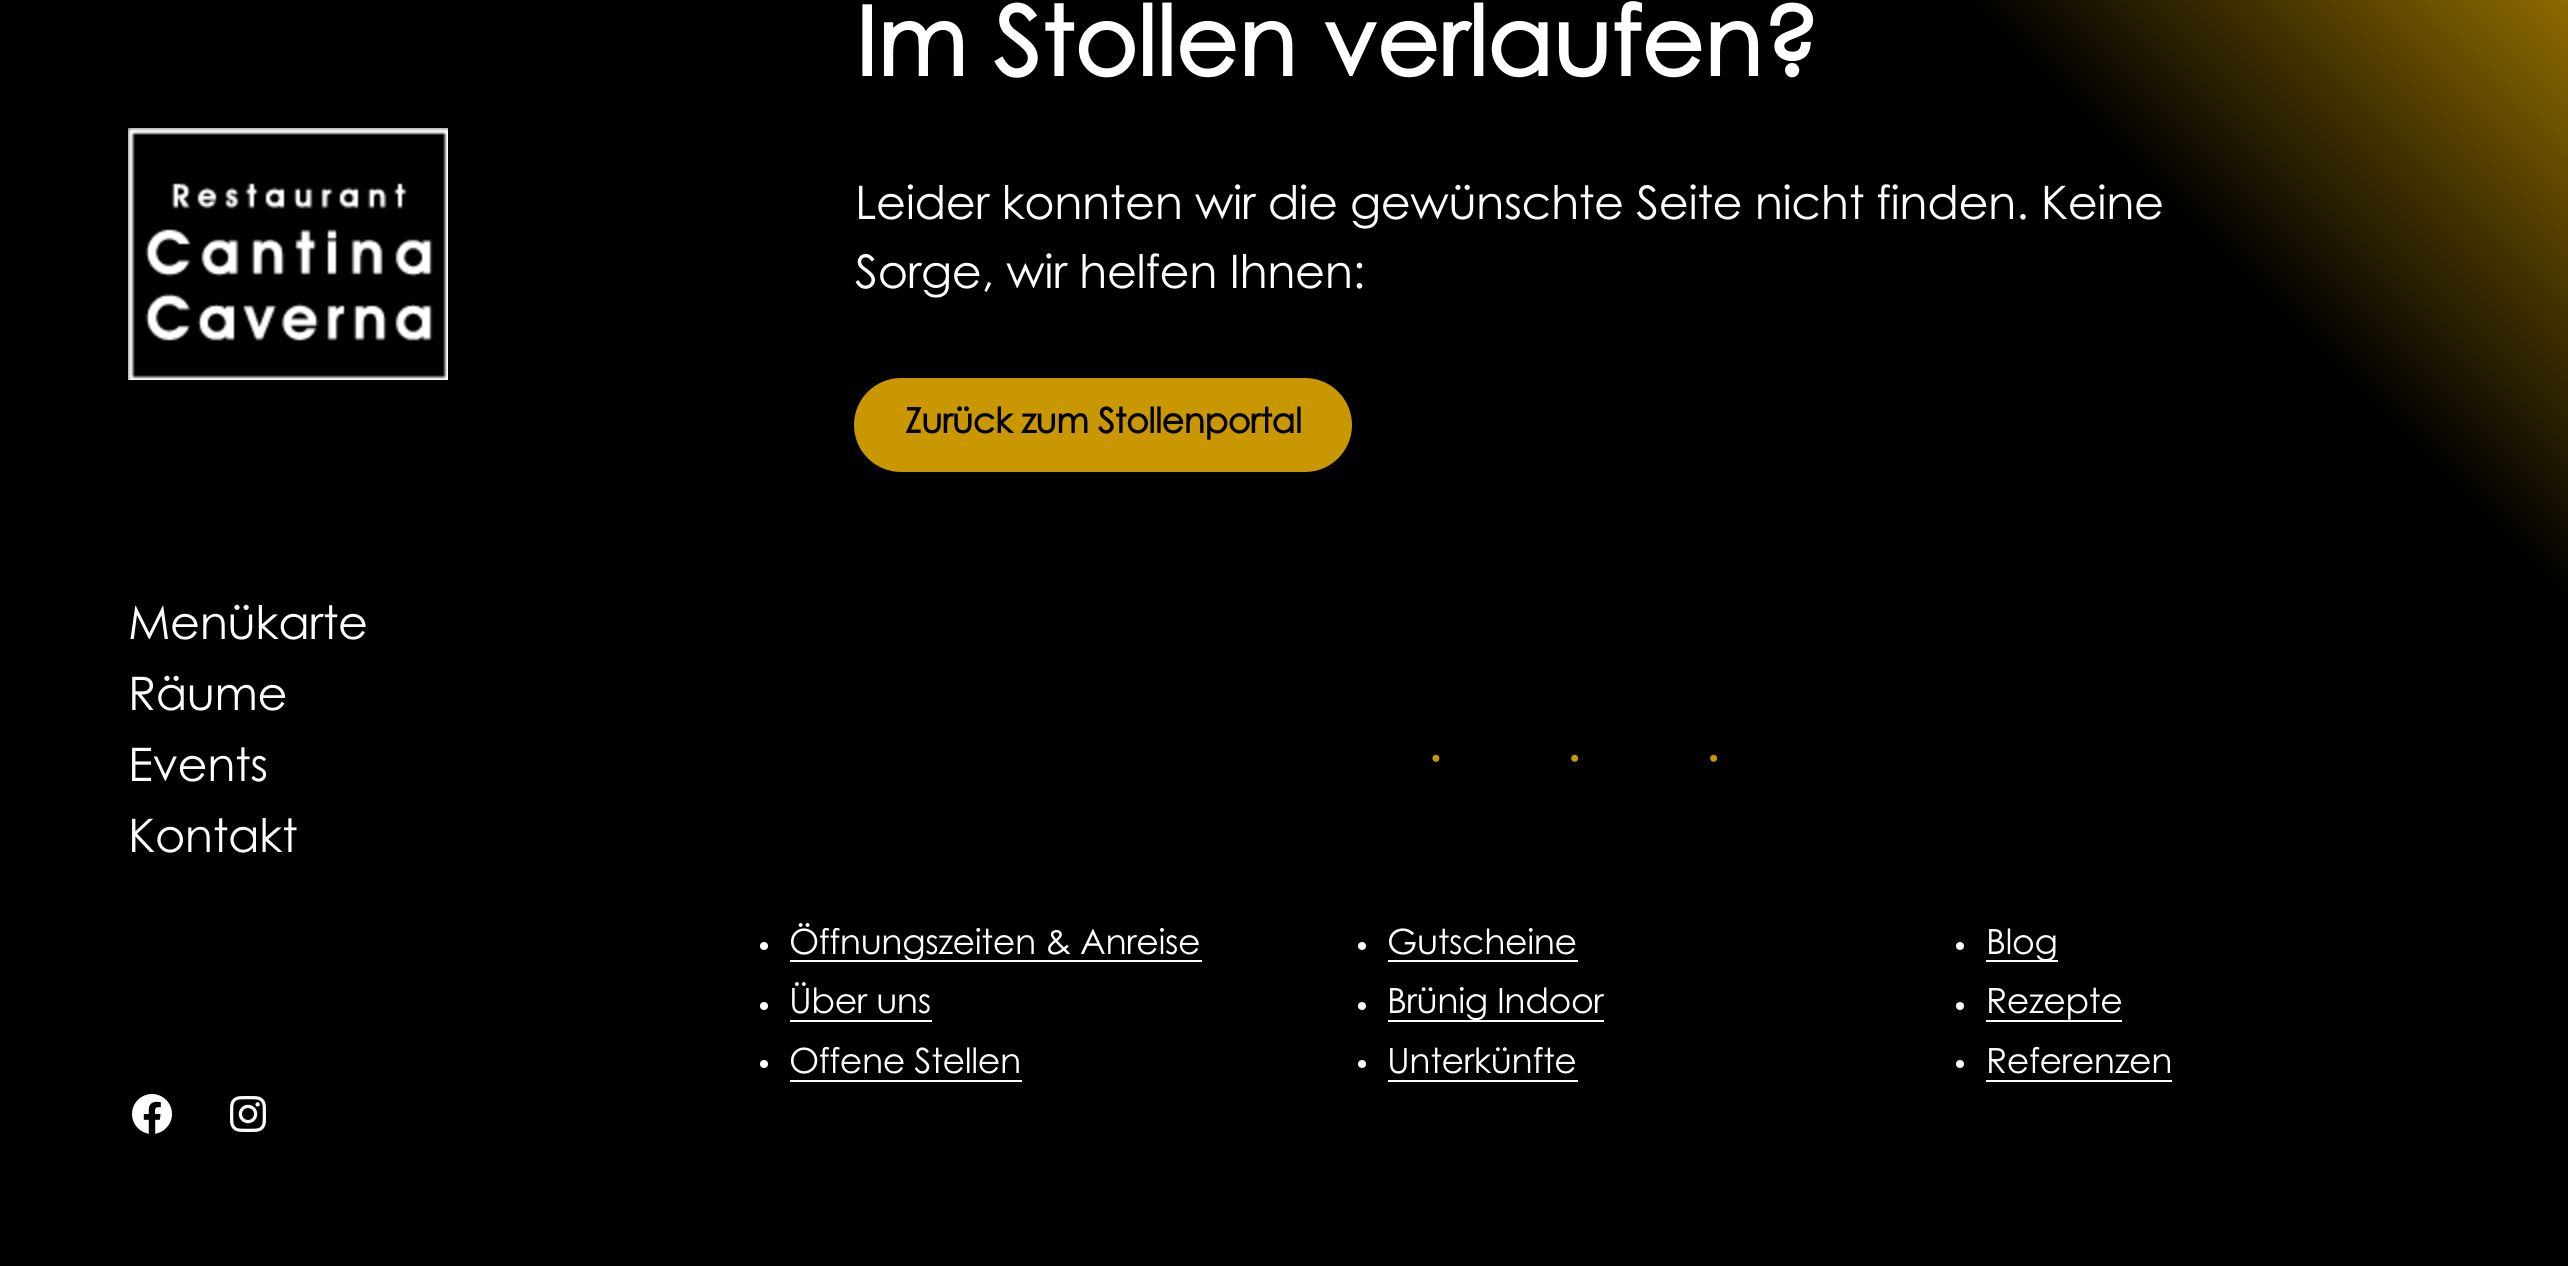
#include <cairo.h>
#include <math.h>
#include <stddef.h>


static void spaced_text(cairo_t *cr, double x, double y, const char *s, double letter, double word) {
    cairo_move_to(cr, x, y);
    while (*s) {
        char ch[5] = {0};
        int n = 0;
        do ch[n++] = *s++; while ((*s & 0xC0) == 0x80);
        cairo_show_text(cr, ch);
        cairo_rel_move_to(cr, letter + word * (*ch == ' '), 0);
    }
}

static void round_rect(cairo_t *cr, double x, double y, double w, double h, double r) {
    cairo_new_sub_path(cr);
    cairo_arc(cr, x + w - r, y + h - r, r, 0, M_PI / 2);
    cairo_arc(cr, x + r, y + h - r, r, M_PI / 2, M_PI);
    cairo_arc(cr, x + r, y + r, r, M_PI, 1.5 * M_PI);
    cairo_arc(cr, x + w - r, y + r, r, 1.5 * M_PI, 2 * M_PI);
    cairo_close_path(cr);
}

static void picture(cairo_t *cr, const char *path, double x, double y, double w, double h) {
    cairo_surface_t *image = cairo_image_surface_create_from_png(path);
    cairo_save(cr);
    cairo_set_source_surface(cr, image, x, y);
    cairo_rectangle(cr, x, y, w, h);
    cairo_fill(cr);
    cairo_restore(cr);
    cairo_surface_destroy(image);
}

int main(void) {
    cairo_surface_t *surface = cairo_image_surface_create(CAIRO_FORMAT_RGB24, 2568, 1266);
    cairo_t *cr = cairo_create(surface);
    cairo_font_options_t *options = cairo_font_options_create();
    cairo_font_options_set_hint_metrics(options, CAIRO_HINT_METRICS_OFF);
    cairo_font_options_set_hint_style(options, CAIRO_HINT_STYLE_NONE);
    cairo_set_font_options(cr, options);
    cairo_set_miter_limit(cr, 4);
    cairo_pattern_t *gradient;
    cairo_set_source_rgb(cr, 1, 1, 1);
    cairo_paint(cr);
    gradient = cairo_pattern_create_linear(211, 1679, 2357, -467);
    cairo_pattern_add_color_stop_rgba(gradient, 0, 0, 0, 0, 1);
    cairo_pattern_add_color_stop_rgba(gradient, 0.8, 0, 0, 0, 1);
    cairo_pattern_add_color_stop_rgba(gradient, 1, 0.788, 0.592, 0, 1);
    cairo_set_source(cr, gradient);
    cairo_pattern_destroy(gradient);
    cairo_rectangle(cr, 0, 0, 2568, 1266);
    cairo_fill(cr);
    picture(cr, "img1.png", 128, 128, 320, 252);
    cairo_select_font_face(cr, "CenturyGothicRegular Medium", CAIRO_FONT_SLANT_NORMAL, CAIRO_FONT_WEIGHT_NORMAL);
    cairo_set_font_size(cr, 46.25);
    cairo_set_source_rgb(cr, 1, 1, 1);
    spaced_text(cr, 128, 639, "Menükarte", -0.4, 0);
    spaced_text(cr, 128, 710, "Räume", -0.4, 0);
    spaced_text(cr, 128, 781, "Events", -0.4, 0);
    spaced_text(cr, 128, 852, "Kontakt", -0.4, 0);
    picture(cr, "img2.png", 132, 1094, 40, 40);
    picture(cr, "img3.png", 230, 1096, 36, 36);
    cairo_select_font_face(cr, "CenturyGothicRegular", CAIRO_FONT_SLANT_NORMAL, CAIRO_FONT_WEIGHT_BOLD);
    cairo_set_font_size(cr, 96.1);
    cairo_move_to(cr, 855, 76);
    cairo_show_text(cr, "Im Stollen verlaufen?");
    cairo_select_font_face(cr, "CenturyGothicRegular Medium", CAIRO_FONT_SLANT_NORMAL, CAIRO_FONT_WEIGHT_NORMAL);
    cairo_set_font_size(cr, 46.25);
    spaced_text(cr, 855, 219, "Leider konnten wir die gewünschte Seite nicht finden. Keine", -0.4, 0);
    spaced_text(cr, 855, 288, "Sorge, wir helfen Ihnen:", -0.4, 0);
    cairo_set_source_rgb(cr, 0.788, 0.592, 0);
    round_rect(cr, 854, 378, 498, 94, 47);
    cairo_fill(cr);
    cairo_select_font_face(cr, "CenturyGothicRegular", CAIRO_FONT_SLANT_NORMAL, CAIRO_FONT_WEIGHT_BOLD);
    cairo_set_font_size(cr, 34.75);
    cairo_set_source_rgb(cr, 0, 0, 0);
    spaced_text(cr, 905, 433, "Zurück zum Stollenportal", -0.4, 0);
    cairo_select_font_face(cr, "Liberation Serif", CAIRO_FONT_SLANT_NORMAL, CAIRO_FONT_WEIGHT_NORMAL);
    cairo_set_font_size(cr, 59.5);
    cairo_set_source_rgb(cr, 0.788, 0.592, 0);
    spaced_text(cr, 1426, 778, "···", 119, 0);
    cairo_set_source_rgb(cr, 1, 1, 1);
    cairo_new_path(cr);
    cairo_arc(cr, 764, 946, 4, 0, 2 * M_PI);
    cairo_fill(cr);
    cairo_rectangle(cr, 790, 960, 412, 2);
    cairo_fill(cr);
    cairo_select_font_face(cr, "CenturyGothicRegular Medium", CAIRO_FONT_SLANT_NORMAL, CAIRO_FONT_WEIGHT_NORMAL);
    cairo_set_font_size(cr, 34.75);
    spaced_text(cr, 789, 954, "Öffnungszeiten & Anreise", -0.4, 0);
    cairo_new_path(cr);
    cairo_arc(cr, 764, 1006, 4, 0, 2 * M_PI);
    cairo_fill(cr);
    spaced_text(cr, 789, 1013, "Über uns", -0.4, 0);
    cairo_rectangle(cr, 790, 1020, 142, 2);
    cairo_fill(cr);
    cairo_arc(cr, 764, 1064, 4, 0, 2 * M_PI);
    cairo_fill(cr);
    spaced_text(cr, 789, 1073, "Offene Stellen", -0.4, 0);
    cairo_rectangle(cr, 790, 1080, 232, 2);
    cairo_fill(cr);
    cairo_arc(cr, 1362, 946, 4, 0, 2 * M_PI);
    cairo_fill(cr);
    spaced_text(cr, 1387, 954, "Gutscheine", -0.4, 0);
    cairo_rectangle(cr, 1388, 960, 190, 2);
    cairo_fill(cr);
    cairo_arc(cr, 1362, 1006, 4, 0, 2 * M_PI);
    cairo_fill(cr);
    cairo_rectangle(cr, 1388, 1020, 216, 2);
    cairo_fill(cr);
    spaced_text(cr, 1387, 1013, "Brünig Indoor", -0.4, 0);
    cairo_new_path(cr);
    cairo_arc(cr, 1362, 1064, 4, 0, 2 * M_PI);
    cairo_fill(cr);
    spaced_text(cr, 1387, 1073, "Unterkünfte", -0.4, 0);
    cairo_rectangle(cr, 1388, 1080, 190, 2);
    cairo_fill(cr);
    cairo_arc(cr, 1960, 946, 4, 0, 2 * M_PI);
    cairo_fill(cr);
    cairo_rectangle(cr, 1986, 960, 72, 2);
    cairo_fill(cr);
    spaced_text(cr, 1986, 954, "Blog", -0.4, 0);
    cairo_new_path(cr);
    cairo_arc(cr, 1960, 1006, 4, 0, 2 * M_PI);
    cairo_fill(cr);
    spaced_text(cr, 1986, 1013, "Rezepte", -0.4, 0);
    cairo_rectangle(cr, 1986, 1020, 136, 2);
    cairo_fill(cr);
    cairo_arc(cr, 1960, 1064, 4, 0, 2 * M_PI);
    cairo_fill(cr);
    spaced_text(cr, 1986, 1073, "Referenzen", -0.4, 0);
    cairo_rectangle(cr, 1986, 1080, 186, 2);
    cairo_fill(cr);
    cairo_surface_write_to_png(surface, "page.png");
    cairo_font_options_destroy(options);
    cairo_destroy(cr);
    cairo_surface_destroy(surface);
    return 0;
}
